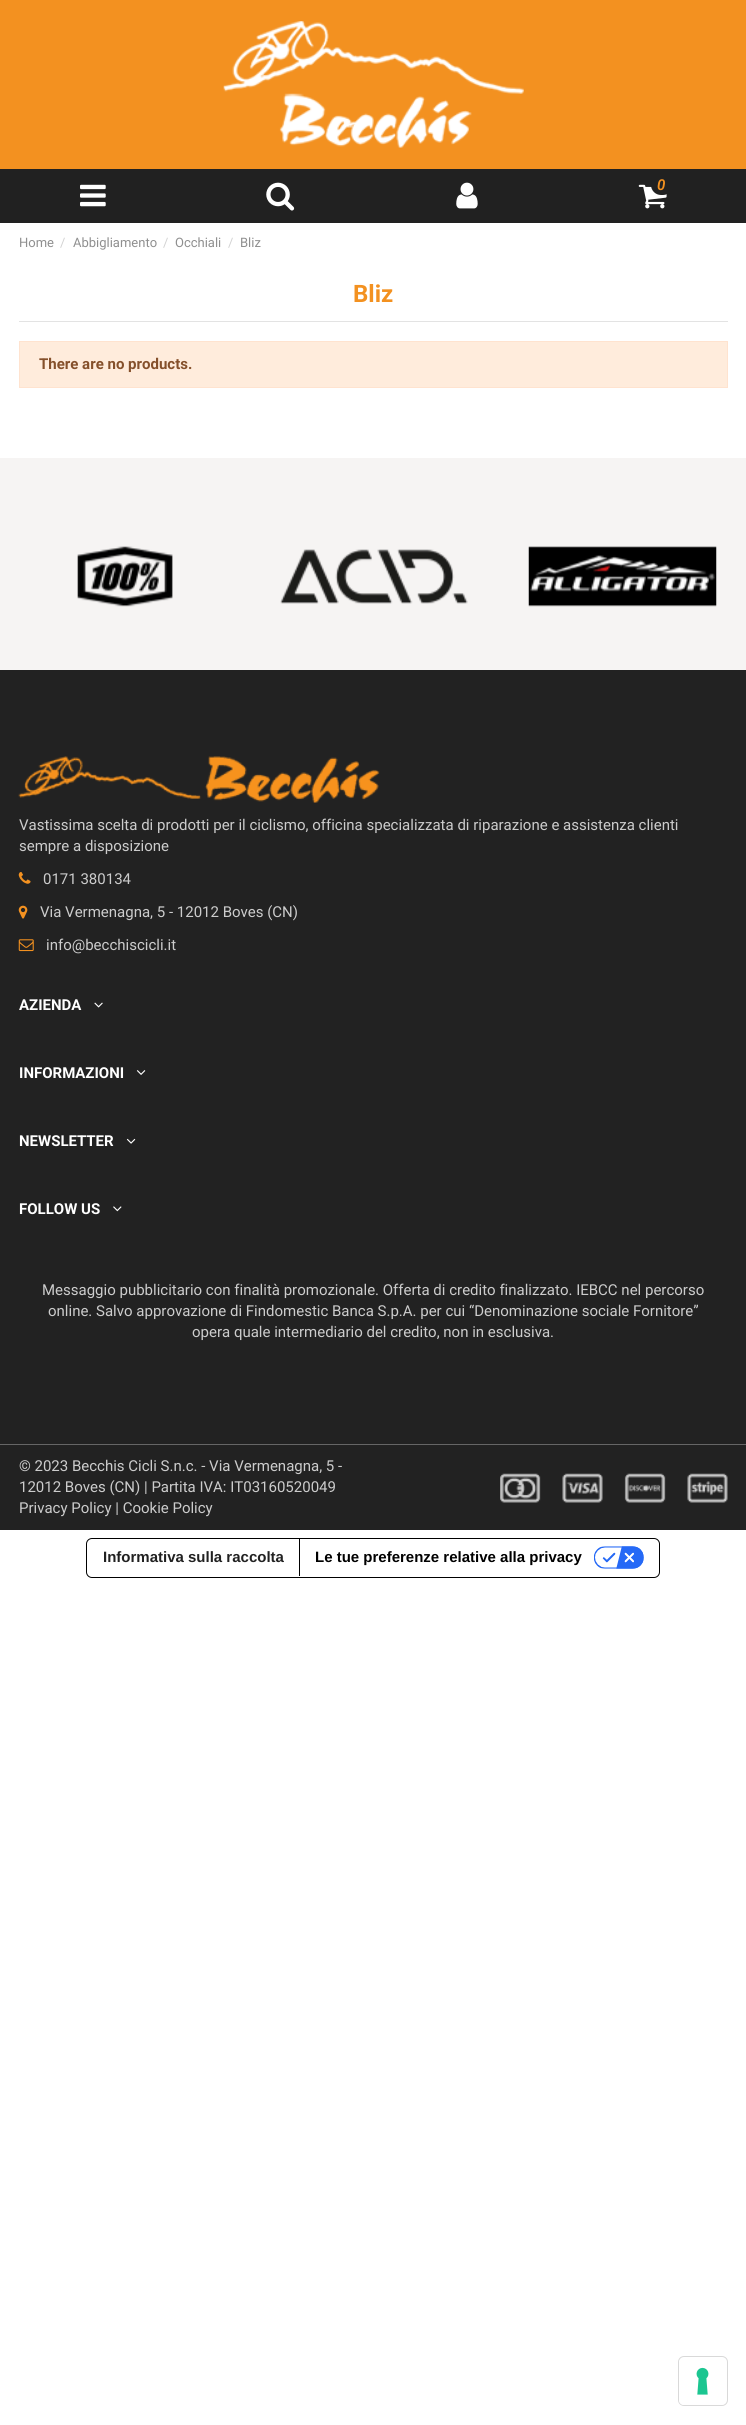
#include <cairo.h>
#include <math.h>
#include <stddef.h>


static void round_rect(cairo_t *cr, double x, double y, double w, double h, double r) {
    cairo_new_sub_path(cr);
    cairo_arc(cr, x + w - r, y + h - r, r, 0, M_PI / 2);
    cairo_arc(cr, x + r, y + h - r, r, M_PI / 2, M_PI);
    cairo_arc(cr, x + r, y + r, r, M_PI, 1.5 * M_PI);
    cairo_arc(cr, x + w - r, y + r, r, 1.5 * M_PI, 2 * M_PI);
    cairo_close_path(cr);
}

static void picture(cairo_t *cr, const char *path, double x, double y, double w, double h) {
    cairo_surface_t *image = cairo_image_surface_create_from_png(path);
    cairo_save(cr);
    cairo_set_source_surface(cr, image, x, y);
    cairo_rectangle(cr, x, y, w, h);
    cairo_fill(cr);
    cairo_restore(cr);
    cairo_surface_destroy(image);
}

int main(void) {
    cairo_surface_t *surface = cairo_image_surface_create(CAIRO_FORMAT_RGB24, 746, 2425);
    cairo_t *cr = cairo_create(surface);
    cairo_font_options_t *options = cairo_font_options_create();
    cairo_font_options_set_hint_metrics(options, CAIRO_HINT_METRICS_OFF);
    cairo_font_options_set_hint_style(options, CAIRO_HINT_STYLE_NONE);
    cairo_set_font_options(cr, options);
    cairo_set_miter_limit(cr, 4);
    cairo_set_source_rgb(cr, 1, 1, 1);
    cairo_paint(cr);
    cairo_set_source_rgb(cr, 0.953, 0.569, 0.125);
    cairo_rectangle(cr, 0, 0, 746, 169);
    cairo_fill(cr);
    picture(cr, "img1.png", 223, 21, 301, 127);
    cairo_set_source_rgb(cr, 0.129, 0.129, 0.129);
    cairo_rectangle(cr, 0, 169, 746, 54);
    cairo_fill(cr);
    picture(cr, "img2.png", 80, 184, 26, 23);
    picture(cr, "img3.png", 266, 182, 29, 29);
    picture(cr, "img4.png", 456, 182, 22, 27);
    picture(cr, "img5.png", 638, 184, 29, 25);
    round_rect(cr, 651, 175, 22, 20, 10);
    cairo_fill(cr);
    cairo_select_font_face(cr, "Roboto SemiBold", CAIRO_FONT_SLANT_ITALIC, CAIRO_FONT_WEIGHT_NORMAL);
    cairo_set_font_size(cr, 15);
    cairo_set_source_rgb(cr, 0.953, 0.569, 0.125);
    cairo_move_to(cr, 657, 190);
    cairo_show_text(cr, "0");
    cairo_select_font_face(cr, "Roboto", CAIRO_FONT_SLANT_NORMAL, CAIRO_FONT_WEIGHT_NORMAL);
    cairo_set_font_size(cr, 13);
    cairo_set_source_rgb(cr, 0.561, 0.561, 0.561);
    cairo_move_to(cr, 19, 247);
    cairo_show_text(cr, "Home");
    cairo_set_source_rgb(cr, 0.824, 0.824, 0.824);
    cairo_move_to(cr, 60, 247);
    cairo_show_text(cr, "/");
    cairo_set_source_rgb(cr, 0.561, 0.561, 0.561);
    cairo_move_to(cr, 73, 247);
    cairo_show_text(cr, "Abbigliamento");
    cairo_set_source_rgb(cr, 0.824, 0.824, 0.824);
    cairo_move_to(cr, 163, 247);
    cairo_show_text(cr, "/");
    cairo_set_source_rgb(cr, 0.561, 0.561, 0.561);
    cairo_move_to(cr, 175, 247);
    cairo_show_text(cr, "Occhiali");
    cairo_set_source_rgb(cr, 0.824, 0.824, 0.824);
    cairo_move_to(cr, 228, 247);
    cairo_show_text(cr, "/");
    cairo_set_source_rgb(cr, 0.561, 0.561, 0.561);
    cairo_move_to(cr, 240, 247);
    cairo_show_text(cr, "Bliz");
    cairo_set_source_rgb(cr, 0.89, 0.89, 0.89);
    cairo_rectangle(cr, 19, 321, 709, 1);
    cairo_fill(cr);
    cairo_select_font_face(cr, "Roboto", CAIRO_FONT_SLANT_NORMAL, CAIRO_FONT_WEIGHT_BOLD);
    cairo_set_font_size(cr, 24);
    cairo_set_source_rgb(cr, 0.953, 0.569, 0.125);
    cairo_move_to(cr, 353, 302);
    cairo_show_text(cr, "Bliz");
    cairo_set_source_rgb(cr, 1, 0.922, 0.863);
    cairo_rectangle(cr, 19.5, 341.5, 708, 46);
    cairo_fill_preserve(cr);
    cairo_set_source_rgb(cr, 1, 0.89, 0.812);
    cairo_set_line_width(cr, 1);
    cairo_stroke(cr);
    cairo_set_font_size(cr, 15);
    cairo_set_source_rgb(cr, 0.522, 0.314, 0.169);
    cairo_move_to(cr, 39, 369);
    cairo_show_text(cr, "There are no products.");
    cairo_set_source_rgb(cr, 0.961, 0.957, 0.953);
    cairo_rectangle(cr, 0, 458, 746, 212);
    cairo_fill(cr);
    picture(cr, "img6.png", 77, 546, 96, 61);
    picture(cr, "img7.png", 280, 549, 188, 55);
    picture(cr, "img8.png", 528, 546, 189, 61);
    cairo_set_source_rgb(cr, 0.133, 0.133, 0.133);
    cairo_rectangle(cr, 0, 670, 746, 860);
    cairo_fill(cr);
    picture(cr, "img9.png", 18, 756, 362, 47);
    cairo_select_font_face(cr, "Roboto", CAIRO_FONT_SLANT_NORMAL, CAIRO_FONT_WEIGHT_NORMAL);
    cairo_set_source_rgb(cr, 0.8, 0.8, 0.8);
    cairo_move_to(cr, 19, 830);
    cairo_show_text(cr, "Vastissima scelta di prodotti per il ciclismo, officina specializzata di riparazione e assistenza clienti");
    cairo_move_to(cr, 19, 851);
    cairo_show_text(cr, "sempre a disposizione");
    picture(cr, "img10.png", 18, 872, 13, 12);
    cairo_move_to(cr, 43, 884);
    cairo_show_text(cr, "0171 380134");
    picture(cr, "img11.png", 18, 905, 10, 14);
    cairo_move_to(cr, 40, 917);
    cairo_show_text(cr, "Via Vermenagna, 5 - 12012 Boves (CN)");
    picture(cr, "img12.png", 18, 939, 16, 13);
    cairo_move_to(cr, 46, 950);
    cairo_show_text(cr, "info@becchiscicli.it");
    cairo_select_font_face(cr, "Roboto", CAIRO_FONT_SLANT_NORMAL, CAIRO_FONT_WEIGHT_BOLD);
    cairo_set_source_rgb(cr, 1, 1, 1);
    cairo_move_to(cr, 19, 1010);
    cairo_show_text(cr, "AZIENDA");
    picture(cr, "img13.png", 94, 1002, 9, 6);
    cairo_move_to(cr, 19, 1078);
    cairo_show_text(cr, "INFORMAZIONI");
    picture(cr, "img14.png", 136, 1070, 10, 5);
    cairo_move_to(cr, 19, 1146);
    cairo_show_text(cr, "NEWSLETTER");
    picture(cr, "img15.png", 126, 1138, 10, 6);
    cairo_move_to(cr, 19, 1214);
    cairo_show_text(cr, "FOLLOW US");
    picture(cr, "img16.png", 113, 1206, 9, 6);
    cairo_select_font_face(cr, "Roboto", CAIRO_FONT_SLANT_NORMAL, CAIRO_FONT_WEIGHT_NORMAL);
    cairo_set_source_rgb(cr, 0.8, 0.8, 0.8);
    cairo_move_to(cr, 42, 1295);
    cairo_show_text(cr, "Messaggio pubblicitario con finalità promozionale. Offerta di credito finalizzato. IEBCC nel percorso");
    cairo_move_to(cr, 48, 1316);
    cairo_show_text(cr, "online. Salvo approvazione di Findomestic Banca S.p.A. per cui “Denominazione sociale Fornitore”");
    cairo_move_to(cr, 192, 1337);
    cairo_show_text(cr, "opera quale intermediario del credito, non in esclusiva.");
    cairo_set_source_rgb(cr, 0.4, 0.4, 0.4);
    cairo_rectangle(cr, 0, 1444, 746, 1);
    cairo_fill(cr);
    cairo_set_source_rgb(cr, 0.8, 0.8, 0.8);
    cairo_move_to(cr, 19, 1471);
    cairo_show_text(cr, "© 2023 Becchis Cicli S.n.c. - Via Vermenagna, 5 -");
    cairo_move_to(cr, 19, 1492);
    cairo_show_text(cr, "12012 Boves (CN) | Partita IVA: IT03160520049");
    cairo_move_to(cr, 19, 1513);
    cairo_show_text(cr, "Privacy Policy | Cookie Policy");
    picture(cr, "img17.png", 500, 1473, 228, 30);
    round_rect(cr, 86.5, 1538.5, 573, 39, 5.5);
    cairo_set_source_rgb(cr, 0, 0, 0);
    cairo_stroke(cr);
    cairo_select_font_face(cr, "Liberation Sans", CAIRO_FONT_SLANT_NORMAL, CAIRO_FONT_WEIGHT_BOLD);
    cairo_set_source_rgb(cr, 0.129, 0.129, 0.129);
    cairo_move_to(cr, 103, 1562);
    cairo_show_text(cr, "Informativa sulla raccolta");
    cairo_set_source_rgb(cr, 0, 0, 0);
    cairo_rectangle(cr, 299, 1539, 1, 37);
    cairo_fill(cr);
    cairo_move_to(cr, 315, 1562);
    cairo_show_text(cr, "Le tue preferenze relative alla privacy");
    picture(cr, "img18.png", 594, 1546, 50, 23);
    round_rect(cr, 678.5, 2356.5, 49, 49, 5.5);
    cairo_set_source_rgb(cr, 0.851, 0.851, 0.851);
    cairo_stroke(cr);
    cairo_set_source_rgb(cr, 1, 1, 1);
    round_rect(cr, 679, 2358, 47, 47, 5);
    cairo_fill(cr);
    picture(cr, "img19.png", 696, 2367, 13, 28);
    cairo_surface_write_to_png(surface, "page.png");
    cairo_font_options_destroy(options);
    cairo_destroy(cr);
    cairo_surface_destroy(surface);
    return 0;
}
